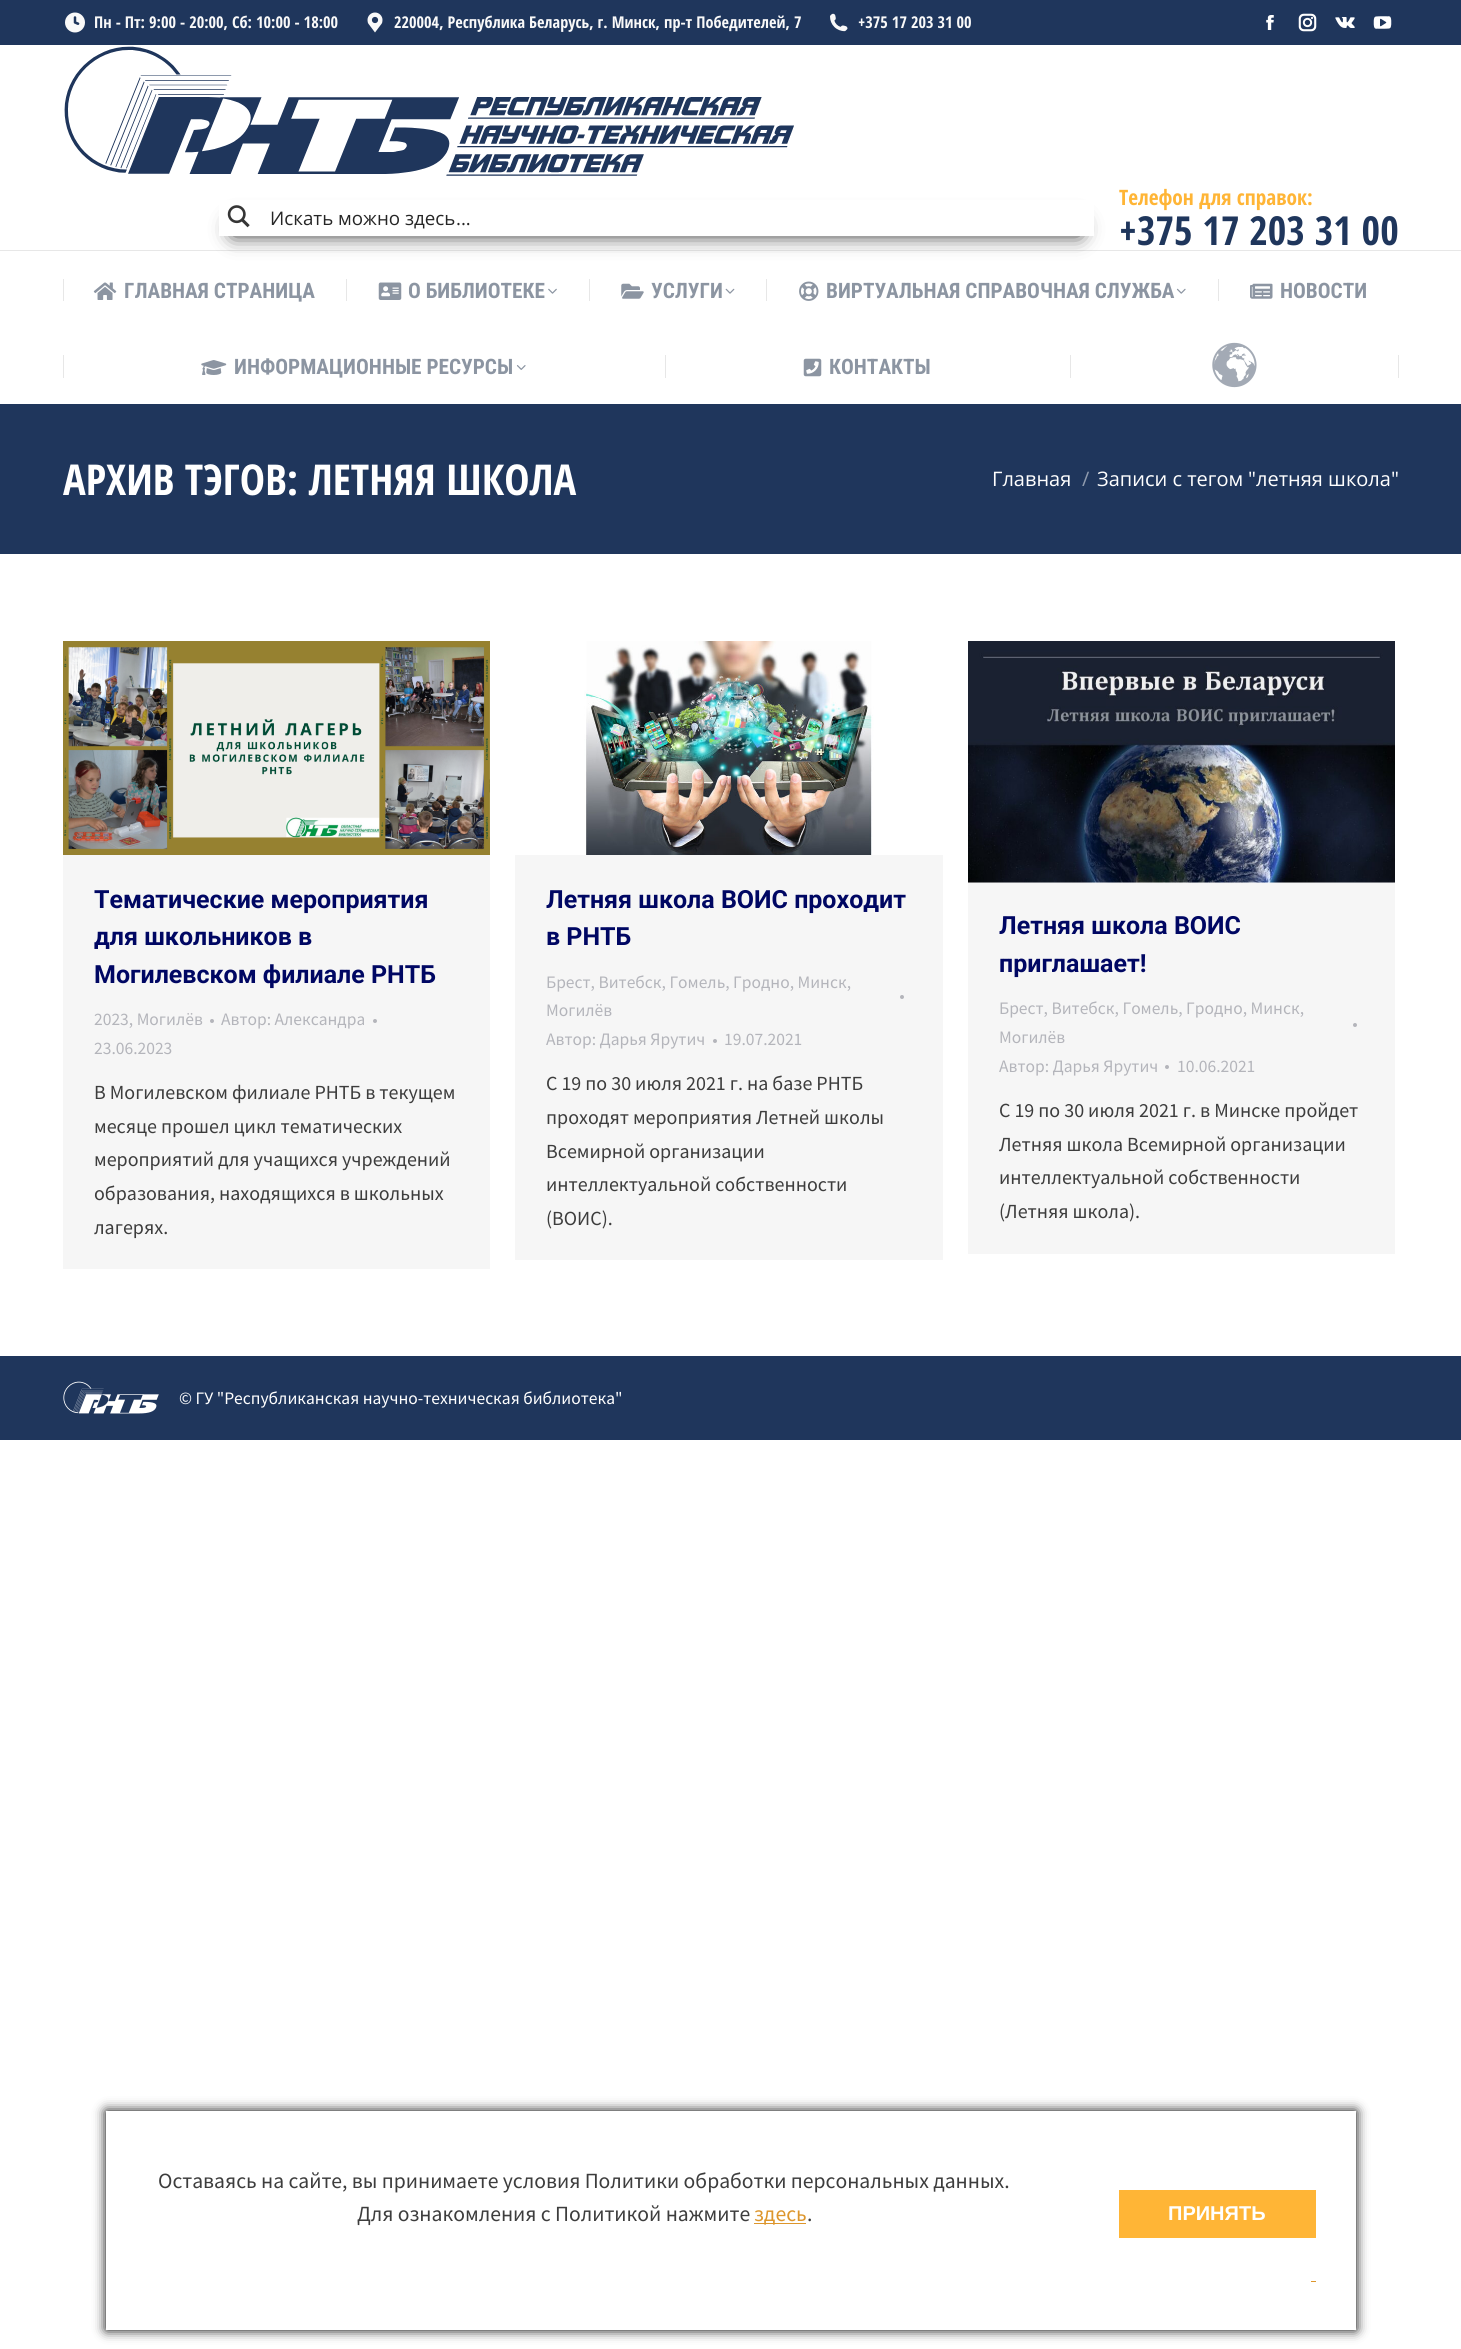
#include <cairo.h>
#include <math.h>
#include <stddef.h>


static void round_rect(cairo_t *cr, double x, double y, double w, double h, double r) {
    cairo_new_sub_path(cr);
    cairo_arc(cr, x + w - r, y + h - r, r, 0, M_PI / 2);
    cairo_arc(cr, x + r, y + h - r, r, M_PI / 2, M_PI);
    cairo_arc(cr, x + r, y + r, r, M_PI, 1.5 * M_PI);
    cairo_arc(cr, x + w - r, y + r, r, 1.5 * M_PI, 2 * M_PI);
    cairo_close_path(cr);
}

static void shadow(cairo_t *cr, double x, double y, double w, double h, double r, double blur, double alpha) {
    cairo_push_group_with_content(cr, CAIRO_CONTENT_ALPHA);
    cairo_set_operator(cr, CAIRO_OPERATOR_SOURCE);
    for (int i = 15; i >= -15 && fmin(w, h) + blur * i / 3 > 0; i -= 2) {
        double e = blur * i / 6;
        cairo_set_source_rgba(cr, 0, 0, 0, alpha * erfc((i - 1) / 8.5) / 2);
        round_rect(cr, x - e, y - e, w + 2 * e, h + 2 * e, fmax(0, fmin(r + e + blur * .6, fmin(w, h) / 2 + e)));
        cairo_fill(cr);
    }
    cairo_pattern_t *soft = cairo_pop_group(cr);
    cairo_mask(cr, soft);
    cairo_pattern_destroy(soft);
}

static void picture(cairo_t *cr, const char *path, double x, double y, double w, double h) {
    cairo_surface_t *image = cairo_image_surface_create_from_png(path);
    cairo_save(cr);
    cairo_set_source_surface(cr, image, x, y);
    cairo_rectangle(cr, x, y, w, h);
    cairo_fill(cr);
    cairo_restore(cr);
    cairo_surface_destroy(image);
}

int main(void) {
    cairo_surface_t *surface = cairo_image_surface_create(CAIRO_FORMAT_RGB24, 1461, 2349);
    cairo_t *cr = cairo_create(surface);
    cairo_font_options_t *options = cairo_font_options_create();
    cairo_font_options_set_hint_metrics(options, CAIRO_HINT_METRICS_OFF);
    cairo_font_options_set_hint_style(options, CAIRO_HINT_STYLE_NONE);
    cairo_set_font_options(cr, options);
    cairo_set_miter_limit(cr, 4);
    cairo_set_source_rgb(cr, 1, 1, 1);
    cairo_paint(cr);
    cairo_set_source_rgb(cr, 0.122, 0.212, 0.361);
    cairo_rectangle(cr, 0, 0, 1461, 45);
    cairo_fill(cr);
    picture(cr, "img1.png", 65, 12, 20, 21);
    cairo_select_font_face(cr, "Open Sans Condensed", CAIRO_FONT_SLANT_NORMAL, CAIRO_FONT_WEIGHT_BOLD);
    cairo_set_font_size(cr, 16.25);
    cairo_set_source_rgb(cr, 0.976, 0.976, 0.976);
    cairo_move_to(cr, 94, 28);
    cairo_show_text(cr, "Пн - Пт: 9:00 - 20:00, Сб: 10:00 - 18:00");
    picture(cr, "img2.png", 367, 12, 16, 21);
    cairo_move_to(cr, 394, 28);
    cairo_show_text(cr, "220004, Республика Беларусь, г. Минск, пр-т Победителей, 7");
    picture(cr, "img3.png", 830, 13, 18, 19);
    cairo_move_to(cr, 858, 28);
    cairo_show_text(cr, "+375 17 203 31 00");
    picture(cr, "img4.png", 1266, 15, 8, 15);
    picture(cr, "img5.png", 1298, 13, 19, 19);
    picture(cr, "img6.png", 1335, 17, 20, 11);
    picture(cr, "img7.png", 1373, 16, 19, 13);
    picture(cr, "img8.png", 64, 46, 730, 130);
    cairo_set_source_rgb(cr, 0, 0, 0);
    shadow(cr, 235, 225, 843, 8, 0, 11, 1);
    cairo_set_source_rgb(cr, 1, 1, 1);
    cairo_rectangle(cr, 219, 200, 875, 36);
    cairo_fill(cr);
    picture(cr, "img9.png", 227, 205, 23, 23);
    cairo_select_font_face(cr, "Open Sans", CAIRO_FONT_SLANT_NORMAL, CAIRO_FONT_WEIGHT_NORMAL);
    cairo_set_font_size(cr, 18.75);
    cairo_set_source_rgb(cr, 0.149, 0.149, 0.149);
    cairo_move_to(cr, 270, 225);
    cairo_show_text(cr, "Искать можно здесь");
    cairo_select_font_face(cr, "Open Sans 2", CAIRO_FONT_SLANT_NORMAL, CAIRO_FONT_WEIGHT_NORMAL);
    cairo_move_to(cr, 456, 225);
    cairo_show_text(cr, "...");
    cairo_select_font_face(cr, "Open Sans Condensed", CAIRO_FONT_SLANT_NORMAL, CAIRO_FONT_WEIGHT_BOLD);
    cairo_set_font_size(cr, 21.25);
    cairo_set_source_rgb(cr, 1, 0.71, 0.212);
    cairo_move_to(cr, 1119, 205);
    cairo_show_text(cr, "Телефон для справок:");
    cairo_set_font_size(cr, 40);
    cairo_set_source_rgb(cr, 0.122, 0.212, 0.361);
    cairo_move_to(cr, 1119, 245);
    cairo_show_text(cr, "+375 17 203 31 00");
    cairo_set_source_rgba(cr, 0.2, 0.2, 0.2, 0.12);
    cairo_rectangle(cr, 0, 250, 1461, 1);
    cairo_fill(cr);
    cairo_set_source_rgb(cr, 0.906, 0.906, 0.906);
    cairo_rectangle(cr, 63, 279, 1, 22);
    cairo_fill(cr);
    picture(cr, "img10.png", 93, 282, 24, 18);
    cairo_select_font_face(cr, "Roboto Condensed", CAIRO_FONT_SLANT_NORMAL, CAIRO_FONT_WEIGHT_BOLD);
    cairo_set_font_size(cr, 21.25);
    cairo_set_source_rgb(cr, 0.549, 0.584, 0.635);
    cairo_move_to(cr, 124, 298);
    cairo_show_text(cr, "ГЛАВНАЯ СТРАНИЦА");
    cairo_set_source_rgb(cr, 0.906, 0.906, 0.906);
    cairo_rectangle(cr, 346, 279, 1, 22);
    cairo_fill(cr);
    picture(cr, "img11.png", 378, 282, 24, 18);
    cairo_set_source_rgb(cr, 0.549, 0.584, 0.635);
    cairo_move_to(cr, 408, 298);
    cairo_show_text(cr, "О БИБЛИОТЕКЕ");
    picture(cr, "img12.png", 548, 288, 9, 6);
    cairo_set_source_rgb(cr, 0.906, 0.906, 0.906);
    cairo_rectangle(cr, 589, 279, 1, 22);
    cairo_fill(cr);
    picture(cr, "img13.png", 621, 283, 23, 16);
    cairo_set_source_rgb(cr, 0.549, 0.584, 0.635);
    cairo_move_to(cr, 651, 298);
    cairo_show_text(cr, "УСЛУГИ");
    picture(cr, "img14.png", 725, 288, 10, 6);
    cairo_set_source_rgb(cr, 0.906, 0.906, 0.906);
    cairo_rectangle(cr, 766, 279, 1, 22);
    cairo_fill(cr);
    picture(cr, "img15.png", 799, 281, 20, 20);
    cairo_set_source_rgb(cr, 0.549, 0.584, 0.635);
    cairo_move_to(cr, 826, 298);
    cairo_show_text(cr, "ВИРТУАЛЬНАЯ СПРАВОЧНАЯ СЛУЖБА");
    picture(cr, "img16.png", 1176, 288, 10, 6);
    cairo_set_source_rgb(cr, 0.906, 0.906, 0.906);
    cairo_rectangle(cr, 1218, 279, 1, 22);
    cairo_fill(cr);
    picture(cr, "img17.png", 1250, 283, 23, 16);
    cairo_set_source_rgb(cr, 0.549, 0.584, 0.635);
    cairo_move_to(cr, 1280, 298);
    cairo_show_text(cr, "НОВОСТИ");
    cairo_set_source_rgb(cr, 0.906, 0.906, 0.906);
    cairo_rectangle(cr, 63, 355, 1, 23);
    cairo_fill(cr);
    picture(cr, "img18.png", 201, 360, 26, 15);
    cairo_set_source_rgb(cr, 0.549, 0.584, 0.635);
    cairo_move_to(cr, 234, 374);
    cairo_show_text(cr, "ИНФОРМАЦИОННЫЕ РЕСУРСЫ");
    picture(cr, "img19.png", 516, 365, 10, 5);
    cairo_set_source_rgb(cr, 0.906, 0.906, 0.906);
    cairo_rectangle(cr, 665, 355, 1, 23);
    cairo_fill(cr);
    picture(cr, "img20.png", 803, 358, 19, 19);
    cairo_set_source_rgb(cr, 0.549, 0.584, 0.635);
    cairo_move_to(cr, 829, 374);
    cairo_show_text(cr, "КОНТАКТЫ");
    cairo_set_source_rgb(cr, 0.906, 0.906, 0.906);
    cairo_rectangle(cr, 1070, 355, 1, 23);
    cairo_fill(cr);
    picture(cr, "img21.png", 1212, 342, 45, 46);
    cairo_rectangle(cr, 1398, 355, 1, 23);
    cairo_fill(cr);
    cairo_set_source_rgb(cr, 0.122, 0.212, 0.361);
    cairo_rectangle(cr, 0, 404, 1461, 150);
    cairo_fill(cr);
    cairo_select_font_face(cr, "Open Sans Condensed", CAIRO_FONT_SLANT_NORMAL, CAIRO_FONT_WEIGHT_BOLD);
    cairo_set_font_size(cr, 42.5);
    cairo_set_source_rgb(cr, 1, 1, 1);
    cairo_move_to(cr, 63, 495);
    cairo_show_text(cr, "АРХИВ ТЭГОВ: ЛЕТНЯЯ ШКОЛА");
    cairo_select_font_face(cr, "Open Sans", CAIRO_FONT_SLANT_NORMAL, CAIRO_FONT_WEIGHT_NORMAL);
    cairo_set_font_size(cr, 20);
    cairo_move_to(cr, 992, 486);
    cairo_show_text(cr, "Главная");
    cairo_select_font_face(cr, "Open Sans 2", CAIRO_FONT_SLANT_NORMAL, CAIRO_FONT_WEIGHT_NORMAL);
    cairo_set_source_rgb(cr, 0.561, 0.608, 0.682);
    cairo_move_to(cr, 1082, 486);
    cairo_show_text(cr, "/");
    cairo_select_font_face(cr, "Open Sans", CAIRO_FONT_SLANT_NORMAL, CAIRO_FONT_WEIGHT_NORMAL);
    cairo_set_source_rgb(cr, 1, 1, 1);
    cairo_move_to(cr, 1097, 486);
    cairo_show_text(cr, "Записи с тегом");
    cairo_select_font_face(cr, "Open Sans 2", CAIRO_FONT_SLANT_NORMAL, CAIRO_FONT_WEIGHT_NORMAL);
    cairo_move_to(cr, 1248, 486);
    cairo_show_text(cr, "\"");
    cairo_move_to(cr, 1391, 486);
    cairo_show_text(cr, "\"");
    cairo_select_font_face(cr, "Open Sans", CAIRO_FONT_SLANT_NORMAL, CAIRO_FONT_WEIGHT_NORMAL);
    cairo_move_to(cr, 1256, 486);
    cairo_show_text(cr, "летняя школа");
    cairo_set_source_rgb(cr, 0.961, 0.961, 0.961);
    cairo_rectangle(cr, 63, 855, 427, 414);
    cairo_fill(cr);
    picture(cr, "img22.png", 63, 641, 427, 214);
    cairo_select_font_face(cr, "Roboto", CAIRO_FONT_SLANT_NORMAL, CAIRO_FONT_WEIGHT_BOLD);
    cairo_set_font_size(cr, 25);
    cairo_set_source_rgb(cr, 0, 0.031, 0.388);
    cairo_move_to(cr, 94, 908);
    cairo_show_text(cr, "Тематические мероприятия");
    cairo_move_to(cr, 94, 945);
    cairo_show_text(cr, "для школьников в");
    cairo_move_to(cr, 94, 983);
    cairo_show_text(cr, "Могилевском филиале РНТБ");
    cairo_select_font_face(cr, "Source Sans Pro", CAIRO_FONT_SLANT_NORMAL, CAIRO_FONT_WEIGHT_NORMAL);
    cairo_set_font_size(cr, 17.5);
    cairo_set_source_rgb(cr, 0.706, 0.71, 0.733);
    cairo_move_to(cr, 94, 1025);
    cairo_show_text(cr, "2023, Могилёв");
    cairo_new_path(cr);
    cairo_arc(cr, 212, 1021, 2, 0, 2 * M_PI);
    cairo_fill(cr);
    cairo_move_to(cr, 221, 1025);
    cairo_show_text(cr, "Автор: Александра");
    cairo_new_path(cr);
    cairo_arc(cr, 375, 1021, 2, 0, 2 * M_PI);
    cairo_fill(cr);
    cairo_move_to(cr, 94, 1054);
    cairo_show_text(cr, "23.06.2023");
    cairo_set_font_size(cr, 20);
    cairo_set_source_rgb(cr, 0.239, 0.239, 0.239);
    cairo_move_to(cr, 94, 1099);
    cairo_show_text(cr, "В Могилевском филиале РНТБ в текущем");
    cairo_move_to(cr, 94, 1133);
    cairo_show_text(cr, "месяце прошел цикл тематических");
    cairo_move_to(cr, 94, 1166);
    cairo_show_text(cr, "мероприятий для учащихся учреждений");
    cairo_move_to(cr, 94, 1200);
    cairo_show_text(cr, "образования, находящихся в школьных");
    cairo_move_to(cr, 94, 1234);
    cairo_show_text(cr, "лагерях.");
    cairo_set_source_rgb(cr, 0.961, 0.961, 0.961);
    cairo_rectangle(cr, 515, 855, 428, 405);
    cairo_fill(cr);
    picture(cr, "img23.png", 515, 641, 428, 214);
    cairo_select_font_face(cr, "Roboto", CAIRO_FONT_SLANT_NORMAL, CAIRO_FONT_WEIGHT_BOLD);
    cairo_set_font_size(cr, 25);
    cairo_set_source_rgb(cr, 0, 0.031, 0.388);
    cairo_move_to(cr, 546, 908);
    cairo_show_text(cr, "Летняя школа ВОИС проходит");
    cairo_move_to(cr, 546, 945);
    cairo_show_text(cr, "в РНТБ");
    cairo_select_font_face(cr, "Source Sans Pro", CAIRO_FONT_SLANT_NORMAL, CAIRO_FONT_WEIGHT_NORMAL);
    cairo_set_font_size(cr, 17.5);
    cairo_set_source_rgb(cr, 0.706, 0.71, 0.733);
    cairo_move_to(cr, 546, 988);
    cairo_show_text(cr, "Брест, Витебск, Гомель, Гродно, Минск,");
    cairo_new_path(cr);
    cairo_arc(cr, 902, 997, 2, 0, 2 * M_PI);
    cairo_fill(cr);
    cairo_move_to(cr, 546, 1016);
    cairo_show_text(cr, "Могилёв");
    cairo_move_to(cr, 546, 1045);
    cairo_show_text(cr, "Автор: Дарья Ярутич");
    cairo_new_path(cr);
    cairo_arc(cr, 715, 1041, 2, 0, 2 * M_PI);
    cairo_fill(cr);
    cairo_move_to(cr, 724, 1045);
    cairo_show_text(cr, "19.07.2021");
    cairo_set_font_size(cr, 20);
    cairo_set_source_rgb(cr, 0.239, 0.239, 0.239);
    cairo_move_to(cr, 546, 1090);
    cairo_show_text(cr, "С 19 по 30 июля 2021 г. на базе РНТБ");
    cairo_move_to(cr, 546, 1124);
    cairo_show_text(cr, "проходят мероприятия Летней школы");
    cairo_move_to(cr, 546, 1158);
    cairo_show_text(cr, "Всемирной организации");
    cairo_move_to(cr, 546, 1191);
    cairo_show_text(cr, "интеллектуальной собственности");
    cairo_move_to(cr, 546, 1225);
    cairo_show_text(cr, "(ВОИС).");
    cairo_set_source_rgb(cr, 0.961, 0.961, 0.961);
    cairo_rectangle(cr, 968, 882, 427, 372);
    cairo_fill(cr);
    picture(cr, "img24.png", 968, 641, 427, 242);
    cairo_select_font_face(cr, "Roboto", CAIRO_FONT_SLANT_NORMAL, CAIRO_FONT_WEIGHT_BOLD);
    cairo_set_font_size(cr, 25);
    cairo_set_source_rgb(cr, 0, 0.031, 0.388);
    cairo_move_to(cr, 999, 934);
    cairo_show_text(cr, "Летняя школа ВОИС");
    cairo_move_to(cr, 999, 972);
    cairo_show_text(cr, "приглашает!");
    cairo_select_font_face(cr, "Source Sans Pro", CAIRO_FONT_SLANT_NORMAL, CAIRO_FONT_WEIGHT_NORMAL);
    cairo_set_font_size(cr, 17.5);
    cairo_set_source_rgb(cr, 0.706, 0.71, 0.733);
    cairo_move_to(cr, 999, 1014);
    cairo_show_text(cr, "Брест, Витебск, Гомель, Гродно, Минск,");
    cairo_new_path(cr);
    cairo_arc(cr, 1355, 1025, 2, 0, 2 * M_PI);
    cairo_fill(cr);
    cairo_move_to(cr, 999, 1043);
    cairo_show_text(cr, "Могилёв");
    cairo_move_to(cr, 999, 1072);
    cairo_show_text(cr, "Автор: Дарья Ярутич");
    cairo_new_path(cr);
    cairo_arc(cr, 1167, 1067, 2, 0, 2 * M_PI);
    cairo_fill(cr);
    cairo_move_to(cr, 1177, 1072);
    cairo_show_text(cr, "10.06.2021");
    cairo_set_font_size(cr, 20);
    cairo_set_source_rgb(cr, 0.239, 0.239, 0.239);
    cairo_move_to(cr, 999, 1117);
    cairo_show_text(cr, "С 19 по 30 июля 2021 г. в Минске пройдет");
    cairo_move_to(cr, 999, 1151);
    cairo_show_text(cr, "Летняя школа Всемирной организации");
    cairo_move_to(cr, 999, 1184);
    cairo_show_text(cr, "интеллектуальной собственности");
    cairo_move_to(cr, 999, 1218);
    cairo_show_text(cr, "(Летняя школа).");
    cairo_set_source_rgb(cr, 0.122, 0.212, 0.361);
    cairo_rectangle(cr, 0, 1356, 1461, 84);
    cairo_fill(cr);
    picture(cr, "img25.png", 63, 1381, 96, 33);
    cairo_set_font_size(cr, 17.5);
    cairo_set_source_rgb(cr, 1, 1, 1);
    cairo_move_to(cr, 179, 1404);
    cairo_show_text(cr, "© ГУ \"Республиканская научно-техническая библиотека\"");
    cairo_set_source_rgb(cr, 0, 0, 0);
    shadow(cr, 106, 2111, 1250, 219, 0, 6, 1);
    cairo_set_source_rgb(cr, 1, 1, 1);
    cairo_rectangle(cr, 106, 2111, 1250, 219);
    cairo_fill(cr);
    cairo_set_font_size(cr, 21.65);
    cairo_set_source_rgb(cr, 0.239, 0.239, 0.239);
    cairo_move_to(cr, 158, 2188);
    cairo_show_text(cr, "Оставаясь на сайте, вы принимаете условия Политики обработки персональных данных.");
    cairo_move_to(cr, 357, 2221);
    cairo_show_text(cr, "Для ознакомления с Политикой нажмите");
    cairo_set_source_rgb(cr, 0.867, 0.588, 0.173);
    cairo_rectangle(cr, 754, 2223, 52, 1);
    cairo_fill(cr);
    cairo_move_to(cr, 754, 2221);
    cairo_show_text(cr, "здесь");
    cairo_set_source_rgb(cr, 0.239, 0.239, 0.239);
    cairo_move_to(cr, 807, 2221);
    cairo_show_text(cr, ".");
    cairo_set_source_rgb(cr, 1, 0.71, 0.212);
    cairo_rectangle(cr, 1119, 2190, 197, 48);
    cairo_fill(cr);
    cairo_select_font_face(cr, "Liberation Sans", CAIRO_FONT_SLANT_NORMAL, CAIRO_FONT_WEIGHT_BOLD);
    cairo_set_font_size(cr, 20);
    cairo_set_source_rgb(cr, 1, 1, 1);
    cairo_move_to(cr, 1168, 2220);
    cairo_show_text(cr, "ПРИНЯТЬ");
    cairo_set_source_rgb(cr, 0.867, 0.588, 0.173);
    cairo_rectangle(cr, 1311, 2281, 5, 1);
    cairo_fill(cr);
    cairo_surface_write_to_png(surface, "page.png");
    cairo_font_options_destroy(options);
    cairo_destroy(cr);
    cairo_surface_destroy(surface);
    return 0;
}
